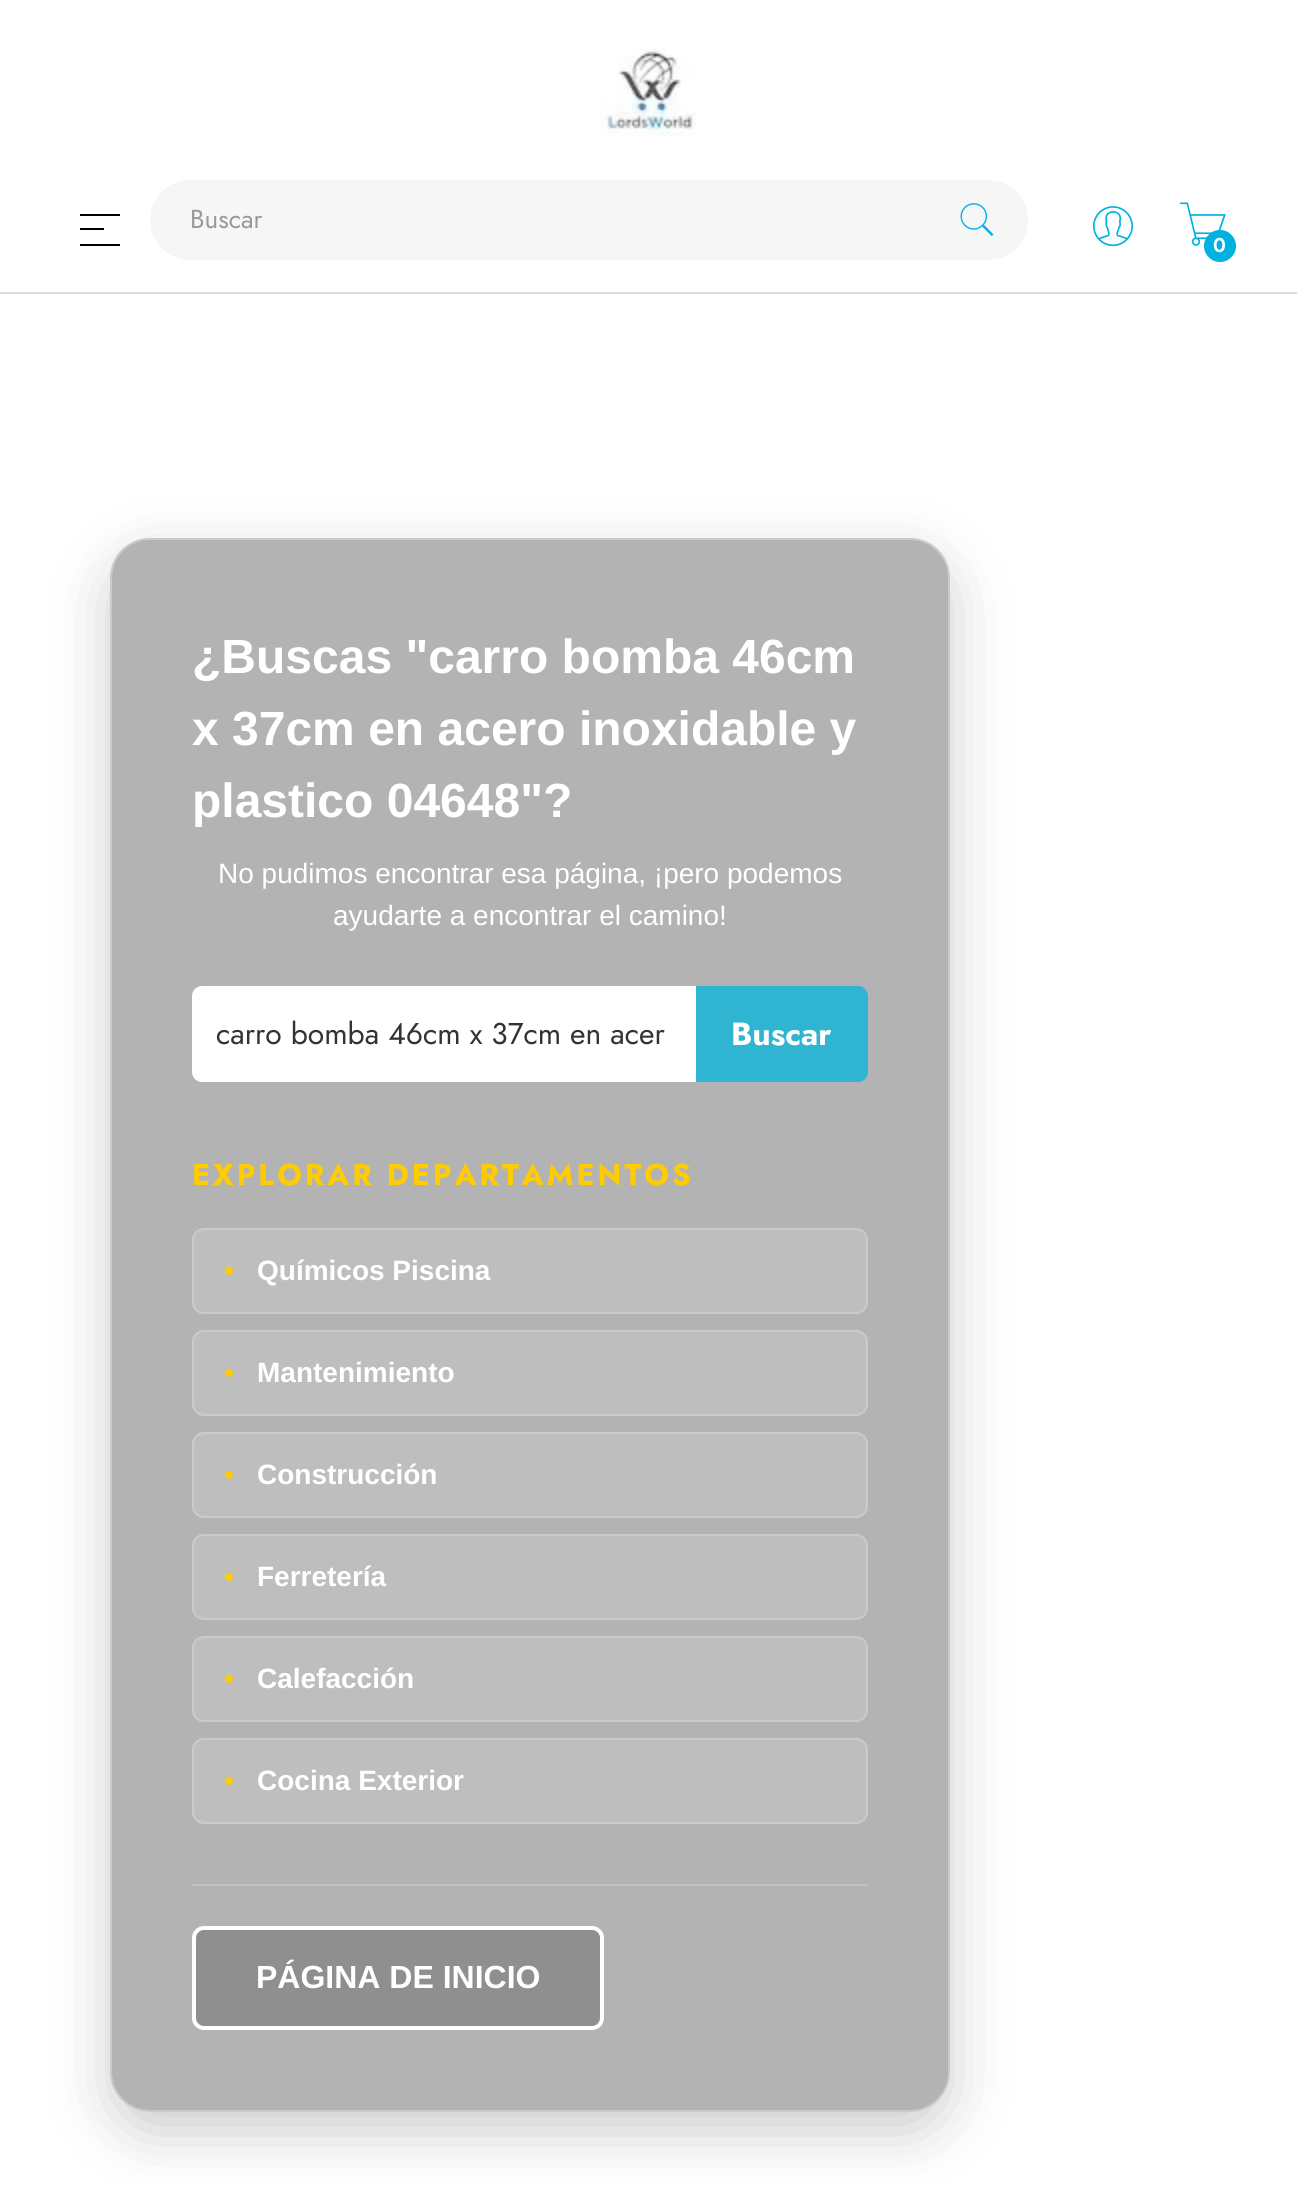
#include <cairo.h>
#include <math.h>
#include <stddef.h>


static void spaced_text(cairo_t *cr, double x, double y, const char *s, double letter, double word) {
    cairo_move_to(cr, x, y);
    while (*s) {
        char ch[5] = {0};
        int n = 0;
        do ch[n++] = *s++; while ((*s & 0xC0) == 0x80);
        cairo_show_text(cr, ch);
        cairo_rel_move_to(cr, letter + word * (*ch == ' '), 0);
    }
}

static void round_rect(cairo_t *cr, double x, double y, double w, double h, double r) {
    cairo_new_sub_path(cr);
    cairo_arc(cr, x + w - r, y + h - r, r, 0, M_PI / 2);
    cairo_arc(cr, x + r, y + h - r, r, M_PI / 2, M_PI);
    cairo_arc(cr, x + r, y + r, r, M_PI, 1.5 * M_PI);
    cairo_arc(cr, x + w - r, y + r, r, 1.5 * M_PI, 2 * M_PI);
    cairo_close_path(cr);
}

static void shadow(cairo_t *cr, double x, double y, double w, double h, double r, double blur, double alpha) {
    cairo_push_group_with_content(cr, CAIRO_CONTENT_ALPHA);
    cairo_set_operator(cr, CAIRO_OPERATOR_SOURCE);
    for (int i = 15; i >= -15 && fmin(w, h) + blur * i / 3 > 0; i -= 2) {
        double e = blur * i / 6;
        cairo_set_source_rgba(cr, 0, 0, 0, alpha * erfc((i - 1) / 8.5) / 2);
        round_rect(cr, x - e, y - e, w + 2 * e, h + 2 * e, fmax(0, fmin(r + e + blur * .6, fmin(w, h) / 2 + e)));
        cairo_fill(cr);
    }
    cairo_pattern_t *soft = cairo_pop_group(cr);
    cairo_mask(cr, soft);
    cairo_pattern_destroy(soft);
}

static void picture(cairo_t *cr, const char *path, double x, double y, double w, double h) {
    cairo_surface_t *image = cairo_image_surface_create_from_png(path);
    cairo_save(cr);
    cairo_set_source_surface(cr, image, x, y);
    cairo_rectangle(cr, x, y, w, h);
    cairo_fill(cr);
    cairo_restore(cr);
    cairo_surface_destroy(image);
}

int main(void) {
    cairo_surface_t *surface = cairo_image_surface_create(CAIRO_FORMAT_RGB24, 1297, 2185);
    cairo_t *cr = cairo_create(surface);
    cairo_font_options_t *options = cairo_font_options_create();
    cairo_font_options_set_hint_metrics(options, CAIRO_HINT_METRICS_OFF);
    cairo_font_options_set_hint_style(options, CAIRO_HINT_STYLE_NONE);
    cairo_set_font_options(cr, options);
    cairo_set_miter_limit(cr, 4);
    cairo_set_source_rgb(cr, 1, 1, 1);
    cairo_paint(cr);
    picture(cr, "img1.png", 600, 47, 96, 89);
    cairo_set_source_rgb(cr, 0.961, 0.961, 0.961);
    round_rect(cr, 150, 180, 878, 80, 40);
    cairo_fill(cr);
    cairo_select_font_face(cr, "Jost", CAIRO_FONT_SLANT_NORMAL, CAIRO_FONT_WEIGHT_NORMAL);
    cairo_set_font_size(cr, 26);
    cairo_set_source_rgb(cr, 0.6, 0.6, 0.6);
    cairo_move_to(cr, 190, 228);
    cairo_show_text(cr, "Buscar");
    picture(cr, "img2.png", 960, 203, 34, 33);
    picture(cr, "img3.png", 1093, 206, 40, 41);
    picture(cr, "img4.png", 1180, 202, 46, 44);
    cairo_set_source_rgb(cr, 0, 0.698, 0.886);
    cairo_arc(cr, 1220, 246, 16, 0, 2 * M_PI);
    cairo_fill(cr);
    cairo_select_font_face(cr, "Jost SemiBold", CAIRO_FONT_SLANT_NORMAL, CAIRO_FONT_WEIGHT_NORMAL);
    cairo_set_font_size(cr, 20);
    cairo_set_source_rgb(cr, 1, 1, 1);
    cairo_move_to(cr, 1213, 252);
    cairo_show_text(cr, "0");
    cairo_set_source_rgb(cr, 0.867, 0.867, 0.867);
    cairo_rectangle(cr, 0, 292, 1297, 2);
    cairo_fill(cr);
    cairo_set_source_rgb(cr, 0, 0, 0);
    cairo_rectangle(cr, 80, 214, 40, 2);
    cairo_fill(cr);
    cairo_rectangle(cr, 80, 244, 40, 2);
    cairo_fill(cr);
    cairo_rectangle(cr, 80, 228, 24, 2);
    cairo_fill(cr);
    cairo_save(cr);
    cairo_set_fill_rule(cr, CAIRO_FILL_RULE_EVEN_ODD);
    cairo_new_path(cr);
    cairo_move_to(cr, 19, 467);
    cairo_line_to(cr, 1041, 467);
    cairo_line_to(cr, 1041, 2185);
    cairo_line_to(cr, 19, 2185);
    cairo_close_path(cr);
    cairo_move_to(cr, 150, 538);
    cairo_line_to(cr, 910, 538);
    cairo_curve_to(cr, 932, 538, 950, 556, 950, 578);
    cairo_line_to(cr, 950, 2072);
    cairo_curve_to(cr, 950, 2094, 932, 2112, 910, 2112);
    cairo_line_to(cr, 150, 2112);
    cairo_curve_to(cr, 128, 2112, 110, 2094, 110, 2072);
    cairo_line_to(cr, 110, 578);
    cairo_curve_to(cr, 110, 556, 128, 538, 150, 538);
    cairo_close_path(cr);
    cairo_clip(cr);
    cairo_set_source_rgb(cr, 0, 0, 0);
    shadow(cr, 110, 558, 840, 1574, 40, 30, 0.2);
    cairo_restore(cr);
    cairo_set_source_rgba(cr, 0, 0, 0, 0.3);
    round_rect(cr, 110, 538, 840, 1574, 40);
    cairo_fill(cr);
    round_rect(cr, 111, 539, 838, 1572, 39);
    cairo_set_source_rgba(cr, 1, 1, 1, 0.3);
    cairo_stroke(cr);
    cairo_select_font_face(cr, "Liberation Sans", CAIRO_FONT_SLANT_NORMAL, CAIRO_FONT_WEIGHT_BOLD);
    cairo_set_font_size(cr, 48);
    cairo_set_source_rgb(cr, 1, 1, 1);
    cairo_move_to(cr, 192, 673);
    cairo_show_text(cr, "¿Buscas \"carro bomba 46cm");
    cairo_move_to(cr, 192, 745);
    cairo_show_text(cr, "x 37cm en acero inoxidable y");
    cairo_move_to(cr, 192, 817);
    cairo_show_text(cr, "plastico 04648\"?");
    cairo_select_font_face(cr, "Liberation Sans", CAIRO_FONT_SLANT_NORMAL, CAIRO_FONT_WEIGHT_NORMAL);
    cairo_set_font_size(cr, 28);
    cairo_move_to(cr, 218, 883);
    cairo_show_text(cr, "No pudimos encontrar esa página, ¡pero podemos");
    cairo_move_to(cr, 333, 925);
    cairo_show_text(cr, "ayudarte a encontrar el camino!");
    cairo_new_path(cr);
    cairo_move_to(cr, 202, 986);
    cairo_line_to(cr, 696, 986);
    cairo_line_to(cr, 696, 1082);
    cairo_line_to(cr, 202, 1082);
    cairo_curve_to(cr, 196.5, 1082, 192, 1077.5, 192, 1072);
    cairo_line_to(cr, 192, 996);
    cairo_curve_to(cr, 192, 990.5, 196.5, 986, 202, 986);
    cairo_close_path(cr);
    cairo_fill(cr);
    cairo_select_font_face(cr, "Jost", CAIRO_FONT_SLANT_NORMAL, CAIRO_FONT_WEIGHT_NORMAL);
    cairo_set_font_size(cr, 30);
    cairo_set_source_rgb(cr, 0.2, 0.2, 0.2);
    cairo_move_to(cr, 216, 1044);
    cairo_show_text(cr, "carro bomba 46cm x 37cm en acer");
    cairo_set_source_rgb(cr, 0.184, 0.71, 0.824);
    cairo_new_path(cr);
    cairo_move_to(cr, 696, 986);
    cairo_line_to(cr, 858, 986);
    cairo_curve_to(cr, 863.5, 986, 868, 990.5, 868, 996);
    cairo_line_to(cr, 868, 1072);
    cairo_curve_to(cr, 868, 1077.5, 863.5, 1082, 858, 1082);
    cairo_line_to(cr, 696, 1082);
    cairo_close_path(cr);
    cairo_fill(cr);
    cairo_select_font_face(cr, "Jost", CAIRO_FONT_SLANT_NORMAL, CAIRO_FONT_WEIGHT_BOLD);
    cairo_set_font_size(cr, 32);
    cairo_set_source_rgb(cr, 1, 1, 1);
    cairo_move_to(cr, 731, 1045);
    cairo_show_text(cr, "Buscar");
    cairo_set_font_size(cr, 30);
    cairo_set_source_rgb(cr, 1, 0.8, 0);
    spaced_text(cr, 192, 1185, "EXPLORAR DEPARTAMENTOS", 3, 0);
    cairo_set_source_rgb(cr, 0.745, 0.745, 0.745);
    round_rect(cr, 192, 1228, 676, 86, 12);
    cairo_fill(cr);
    round_rect(cr, 193, 1229, 674, 84, 11);
    cairo_set_source_rgba(cr, 1, 1, 1, 0.2);
    cairo_stroke(cr);
    cairo_select_font_face(cr, "Liberation Sans", CAIRO_FONT_SLANT_NORMAL, CAIRO_FONT_WEIGHT_BOLD);
    cairo_set_font_size(cr, 28);
    cairo_set_source_rgb(cr, 1, 0.8, 0);
    cairo_move_to(cr, 224, 1280);
    cairo_show_text(cr, "•");
    cairo_set_source_rgb(cr, 1, 1, 1);
    cairo_move_to(cr, 257, 1280);
    cairo_show_text(cr, "Químicos Piscina");
    cairo_set_source_rgb(cr, 0.745, 0.745, 0.745);
    round_rect(cr, 192, 1330, 676, 86, 12);
    cairo_fill(cr);
    round_rect(cr, 193, 1331, 674, 84, 11);
    cairo_set_source_rgba(cr, 1, 1, 1, 0.2);
    cairo_stroke(cr);
    cairo_set_source_rgb(cr, 1, 0.8, 0);
    cairo_move_to(cr, 224, 1382);
    cairo_show_text(cr, "•");
    cairo_set_source_rgb(cr, 1, 1, 1);
    cairo_move_to(cr, 257, 1382);
    cairo_show_text(cr, "Mantenimiento");
    cairo_set_source_rgb(cr, 0.745, 0.745, 0.745);
    round_rect(cr, 192, 1432, 676, 86, 12);
    cairo_fill(cr);
    round_rect(cr, 193, 1433, 674, 84, 11);
    cairo_set_source_rgba(cr, 1, 1, 1, 0.2);
    cairo_stroke(cr);
    cairo_set_source_rgb(cr, 1, 0.8, 0);
    cairo_move_to(cr, 224, 1484);
    cairo_show_text(cr, "•");
    cairo_set_source_rgb(cr, 1, 1, 1);
    cairo_move_to(cr, 257, 1484);
    cairo_show_text(cr, "Construcción");
    cairo_set_source_rgb(cr, 0.745, 0.745, 0.745);
    round_rect(cr, 192, 1534, 676, 86, 12);
    cairo_fill(cr);
    round_rect(cr, 193, 1535, 674, 84, 11);
    cairo_set_source_rgba(cr, 1, 1, 1, 0.2);
    cairo_stroke(cr);
    cairo_set_source_rgb(cr, 1, 0.8, 0);
    cairo_move_to(cr, 224, 1586);
    cairo_show_text(cr, "•");
    cairo_set_source_rgb(cr, 1, 1, 1);
    cairo_move_to(cr, 257, 1586);
    cairo_show_text(cr, "Ferretería");
    cairo_set_source_rgb(cr, 0.745, 0.745, 0.745);
    round_rect(cr, 192, 1636, 676, 86, 12);
    cairo_fill(cr);
    round_rect(cr, 193, 1637, 674, 84, 11);
    cairo_set_source_rgba(cr, 1, 1, 1, 0.2);
    cairo_stroke(cr);
    cairo_set_source_rgb(cr, 1, 0.8, 0);
    cairo_move_to(cr, 224, 1688);
    cairo_show_text(cr, "•");
    cairo_set_source_rgb(cr, 1, 1, 1);
    cairo_move_to(cr, 257, 1688);
    cairo_show_text(cr, "Calefacción");
    cairo_set_source_rgb(cr, 0.745, 0.745, 0.745);
    round_rect(cr, 192, 1738, 676, 86, 12);
    cairo_fill(cr);
    round_rect(cr, 193, 1739, 674, 84, 11);
    cairo_set_source_rgba(cr, 1, 1, 1, 0.2);
    cairo_stroke(cr);
    cairo_set_source_rgb(cr, 1, 0.8, 0);
    cairo_move_to(cr, 224, 1790);
    cairo_show_text(cr, "•");
    cairo_set_source_rgb(cr, 1, 1, 1);
    cairo_move_to(cr, 257, 1790);
    cairo_show_text(cr, "Cocina Exterior");
    cairo_set_source_rgb(cr, 0.761, 0.761, 0.761);
    cairo_rectangle(cr, 192, 1884, 676, 2);
    cairo_fill(cr);
    cairo_set_source_rgb(cr, 0.561, 0.561, 0.561);
    round_rect(cr, 194, 1928, 408, 100, 10);
    cairo_fill_preserve(cr);
    cairo_set_source_rgb(cr, 1, 1, 1);
    cairo_set_line_width(cr, 4);
    cairo_stroke(cr);
    cairo_set_font_size(cr, 32);
    cairo_move_to(cr, 256, 1988);
    cairo_show_text(cr, "PÁGINA DE INICIO");
    cairo_surface_write_to_png(surface, "page.png");
    cairo_font_options_destroy(options);
    cairo_destroy(cr);
    cairo_surface_destroy(surface);
    return 0;
}
